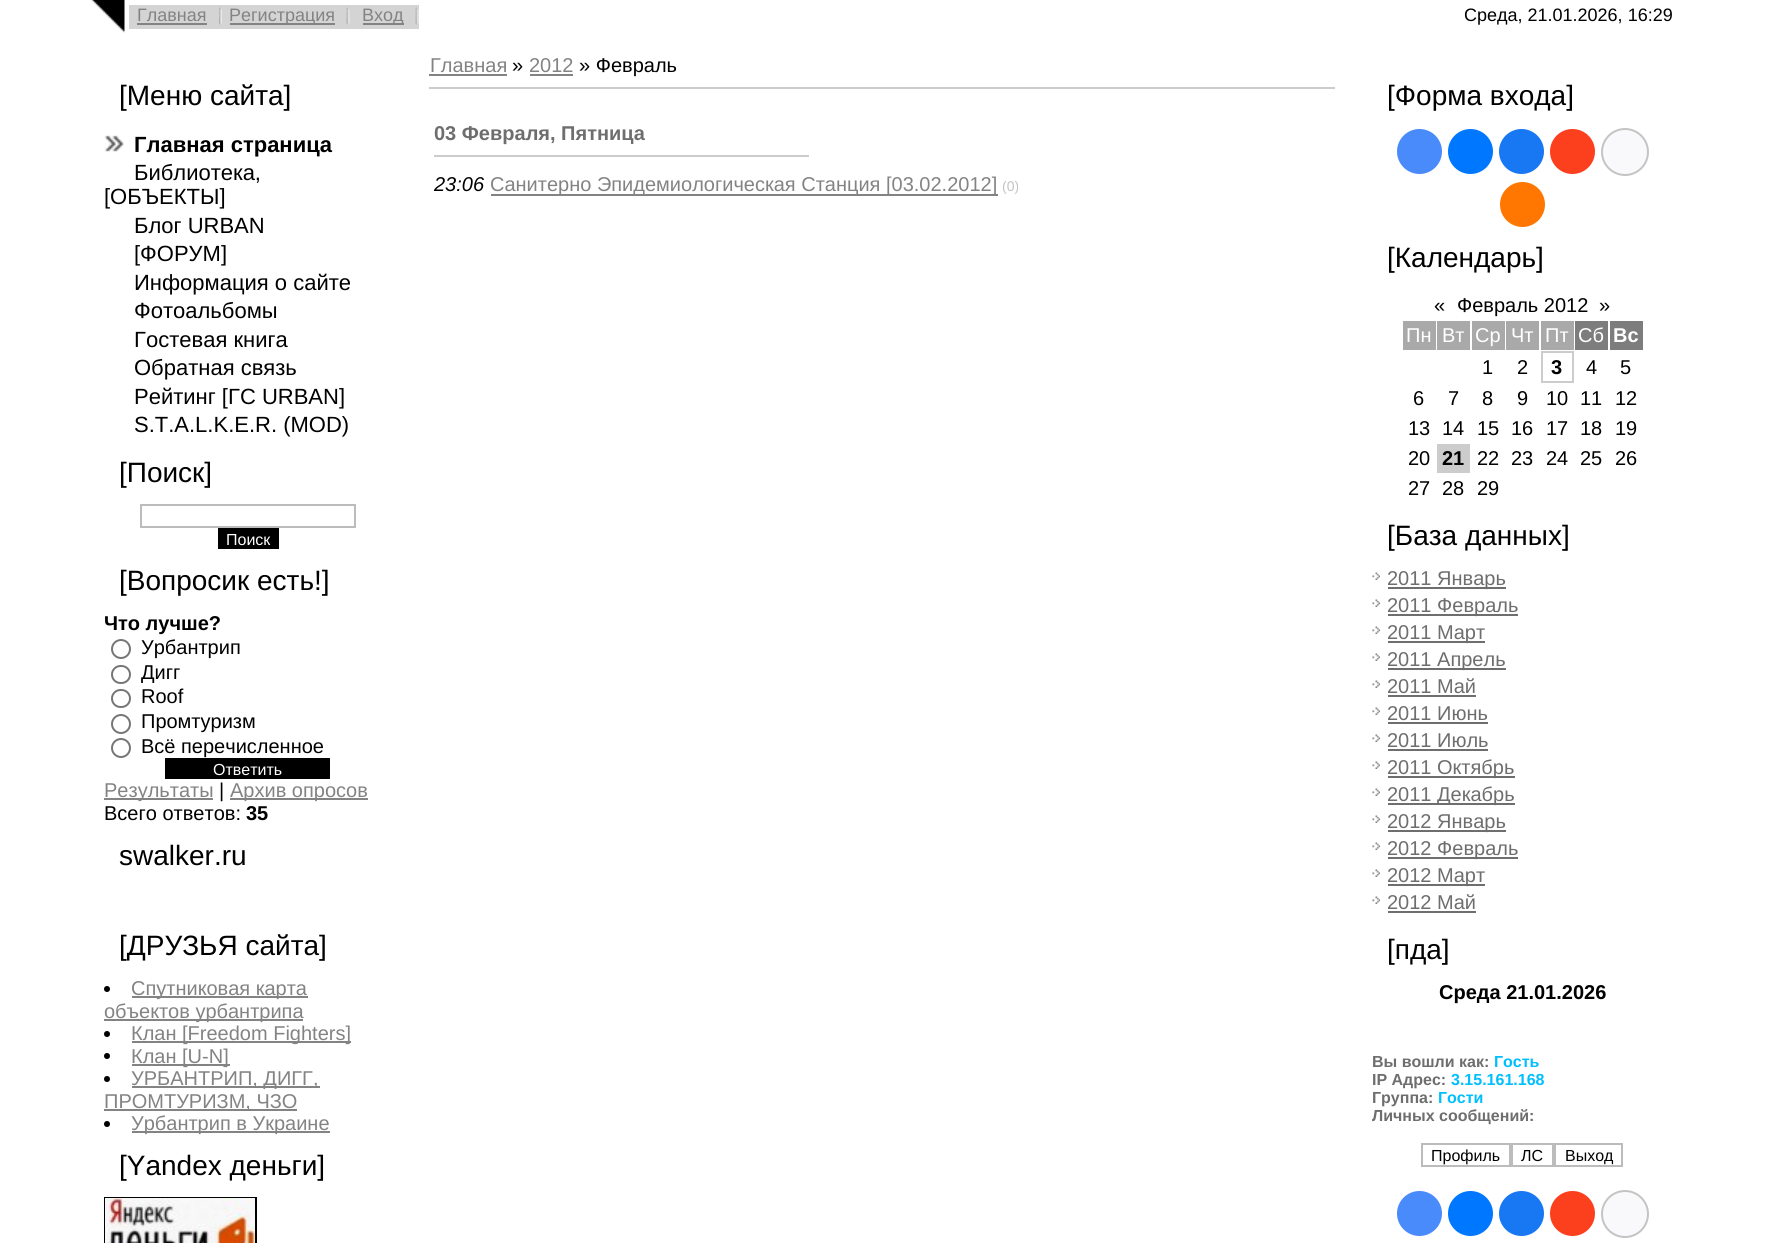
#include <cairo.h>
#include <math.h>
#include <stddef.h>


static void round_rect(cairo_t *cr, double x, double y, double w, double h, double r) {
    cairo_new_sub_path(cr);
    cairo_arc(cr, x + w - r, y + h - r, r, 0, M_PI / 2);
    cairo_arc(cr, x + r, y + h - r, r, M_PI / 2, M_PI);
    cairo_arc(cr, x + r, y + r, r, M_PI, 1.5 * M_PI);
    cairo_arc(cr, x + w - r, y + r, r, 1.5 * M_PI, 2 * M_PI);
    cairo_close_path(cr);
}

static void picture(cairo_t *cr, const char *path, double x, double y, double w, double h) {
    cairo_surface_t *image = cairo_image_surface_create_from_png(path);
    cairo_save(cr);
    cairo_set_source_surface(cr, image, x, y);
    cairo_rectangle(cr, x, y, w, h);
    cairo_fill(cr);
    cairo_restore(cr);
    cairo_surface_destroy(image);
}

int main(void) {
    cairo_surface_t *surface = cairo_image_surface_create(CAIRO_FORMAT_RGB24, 1776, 1243);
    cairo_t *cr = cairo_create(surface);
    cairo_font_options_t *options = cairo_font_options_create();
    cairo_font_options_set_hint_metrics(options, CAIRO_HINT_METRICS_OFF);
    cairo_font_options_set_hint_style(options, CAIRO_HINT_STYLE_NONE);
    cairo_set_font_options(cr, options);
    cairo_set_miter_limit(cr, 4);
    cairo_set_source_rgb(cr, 1, 1, 1);
    cairo_paint(cr);
    picture(cr, "img1.png", 91, 0, 34, 33);
    cairo_set_source_rgb(cr, 0.831, 0.831, 0.831);
    cairo_rectangle(cr, 129, 5, 290, 24);
    cairo_fill(cr);
    cairo_select_font_face(cr, "Liberation Sans", CAIRO_FONT_SLANT_NORMAL, CAIRO_FONT_WEIGHT_NORMAL);
    cairo_set_font_size(cr, 18);
    cairo_set_source_rgb(cr, 0.514, 0.514, 0.514);
    cairo_move_to(cr, 137, 21);
    cairo_show_text(cr, "Главная");
    cairo_rectangle(cr, 137, 23, 70, 2);
    cairo_fill(cr);
    picture(cr, "img2.png", 219, 7, 3, 18);
    cairo_rectangle(cr, 230, 23, 105, 2);
    cairo_fill(cr);
    cairo_move_to(cr, 229, 21);
    cairo_show_text(cr, "Регистрация");
    picture(cr, "img3.png", 346, 7, 4, 18);
    cairo_rectangle(cr, 363, 23, 41, 2);
    cairo_fill(cr);
    cairo_move_to(cr, 362, 21);
    cairo_show_text(cr, "Вход");
    picture(cr, "img3.png", 415, 7, 4, 18);
    cairo_set_source_rgb(cr, 0, 0, 0);
    cairo_move_to(cr, 1464, 21);
    cairo_show_text(cr, "Среда, 21.01.2026, 16:29");
    cairo_set_font_size(cr, 28);
    cairo_move_to(cr, 119, 105);
    cairo_show_text(cr, "[Меню сайта]");
    picture(cr, "img4.png", 104, 135, 20, 17);
    cairo_select_font_face(cr, "Liberation Sans", CAIRO_FONT_SLANT_NORMAL, CAIRO_FONT_WEIGHT_BOLD);
    cairo_set_font_size(cr, 22);
    cairo_move_to(cr, 134, 152);
    cairo_show_text(cr, "Главная страница");
    cairo_select_font_face(cr, "Liberation Sans", CAIRO_FONT_SLANT_NORMAL, CAIRO_FONT_WEIGHT_NORMAL);
    cairo_move_to(cr, 134, 180);
    cairo_show_text(cr, "Библиотека,");
    cairo_move_to(cr, 104, 204);
    cairo_show_text(cr, "[ОБЪЕКТЫ]");
    cairo_move_to(cr, 134, 233);
    cairo_show_text(cr, "Блог URBAN");
    cairo_move_to(cr, 134, 261);
    cairo_show_text(cr, "[ФОРУМ]");
    cairo_move_to(cr, 134, 290);
    cairo_show_text(cr, "Информация о сайте");
    cairo_move_to(cr, 134, 318);
    cairo_show_text(cr, "Фотоальбомы");
    cairo_move_to(cr, 134, 347);
    cairo_show_text(cr, "Гостевая книга");
    cairo_move_to(cr, 134, 375);
    cairo_show_text(cr, "Обратная связь");
    cairo_move_to(cr, 134, 404);
    cairo_show_text(cr, "Рейтинг [ГС URBAN]");
    cairo_move_to(cr, 134, 432);
    cairo_show_text(cr, "S.T.A.L.K.E.R. (MOD)");
    cairo_set_font_size(cr, 28);
    cairo_move_to(cr, 119, 482);
    cairo_show_text(cr, "[Поиск]");
    cairo_rectangle(cr, 141, 505, 214, 22);
    cairo_set_source_rgb(cr, 0.737, 0.737, 0.737);
    cairo_stroke(cr);
    cairo_set_source_rgb(cr, 0, 0, 0);
    cairo_rectangle(cr, 218, 528, 61, 21);
    cairo_fill(cr);
    cairo_set_font_size(cr, 16);
    cairo_set_source_rgb(cr, 1, 1, 1);
    cairo_move_to(cr, 226, 545);
    cairo_show_text(cr, "Поиск");
    cairo_set_font_size(cr, 28);
    cairo_set_source_rgb(cr, 0, 0, 0);
    cairo_move_to(cr, 119, 590);
    cairo_show_text(cr, "[Вопросик есть!]");
    cairo_select_font_face(cr, "Liberation Sans", CAIRO_FONT_SLANT_NORMAL, CAIRO_FONT_WEIGHT_BOLD);
    cairo_set_font_size(cr, 20);
    cairo_move_to(cr, 104, 630);
    cairo_show_text(cr, "Что лучше?");
    cairo_new_path(cr);
    cairo_arc(cr, 121, 649, 9, 0, 2 * M_PI);
    cairo_set_source_rgb(cr, 0.463, 0.463, 0.463);
    cairo_stroke(cr);
    cairo_select_font_face(cr, "Liberation Sans", CAIRO_FONT_SLANT_NORMAL, CAIRO_FONT_WEIGHT_NORMAL);
    cairo_set_source_rgb(cr, 0, 0, 0);
    cairo_move_to(cr, 141, 654);
    cairo_show_text(cr, "Урбантрип");
    round_rect(cr, 112, 666, 18, 17, 8.5);
    cairo_set_source_rgb(cr, 0.463, 0.463, 0.463);
    cairo_stroke(cr);
    cairo_set_source_rgb(cr, 0, 0, 0);
    cairo_move_to(cr, 141, 679);
    cairo_show_text(cr, "Дигг");
    round_rect(cr, 112, 690, 18, 17, 8.5);
    cairo_set_source_rgb(cr, 0.463, 0.463, 0.463);
    cairo_stroke(cr);
    cairo_set_source_rgb(cr, 0, 0, 0);
    cairo_move_to(cr, 141, 703);
    cairo_show_text(cr, "Roof");
    cairo_new_path(cr);
    cairo_arc(cr, 121, 724, 9, 0, 2 * M_PI);
    cairo_set_source_rgb(cr, 0.463, 0.463, 0.463);
    cairo_stroke(cr);
    cairo_set_source_rgb(cr, 0, 0, 0);
    cairo_move_to(cr, 141, 728);
    cairo_show_text(cr, "Промтуризм");
    cairo_new_path(cr);
    cairo_arc(cr, 121, 748, 9, 0, 2 * M_PI);
    cairo_set_source_rgb(cr, 0.463, 0.463, 0.463);
    cairo_stroke(cr);
    cairo_set_source_rgb(cr, 0, 0, 0);
    cairo_move_to(cr, 141, 753);
    cairo_show_text(cr, "Всё перечисленное");
    cairo_rectangle(cr, 165, 758, 165, 21);
    cairo_fill(cr);
    cairo_set_font_size(cr, 16);
    cairo_set_source_rgb(cr, 1, 1, 1);
    cairo_move_to(cr, 213, 775);
    cairo_show_text(cr, "Ответить");
    cairo_set_source_rgb(cr, 0.514, 0.514, 0.514);
    cairo_rectangle(cr, 104, 798, 109, 2);
    cairo_fill(cr);
    cairo_set_font_size(cr, 20);
    cairo_move_to(cr, 104, 797);
    cairo_show_text(cr, "Результаты");
    cairo_set_source_rgb(cr, 0, 0, 0);
    cairo_move_to(cr, 219, 797);
    cairo_show_text(cr, "|");
    cairo_set_source_rgb(cr, 0.514, 0.514, 0.514);
    cairo_rectangle(cr, 230, 798, 138, 2);
    cairo_fill(cr);
    cairo_move_to(cr, 230, 797);
    cairo_show_text(cr, "Архив опросов");
    cairo_set_source_rgb(cr, 0, 0, 0);
    cairo_move_to(cr, 104, 820);
    cairo_show_text(cr, "Всего ответов:");
    cairo_select_font_face(cr, "Liberation Sans", CAIRO_FONT_SLANT_NORMAL, CAIRO_FONT_WEIGHT_BOLD);
    cairo_move_to(cr, 246, 820);
    cairo_show_text(cr, "35");
    cairo_select_font_face(cr, "Liberation Sans", CAIRO_FONT_SLANT_NORMAL, CAIRO_FONT_WEIGHT_NORMAL);
    cairo_set_font_size(cr, 28);
    cairo_move_to(cr, 119, 865);
    cairo_show_text(cr, "swalker.ru");
    cairo_move_to(cr, 119, 955);
    cairo_show_text(cr, "[ДРУЗЬЯ сайта]");
    cairo_new_path(cr);
    cairo_arc(cr, 107, 989, 3, 0, 2 * M_PI);
    cairo_fill(cr);
    cairo_set_source_rgb(cr, 0.514, 0.514, 0.514);
    cairo_rectangle(cr, 132, 996, 176, 2);
    cairo_fill(cr);
    cairo_set_font_size(cr, 20);
    cairo_move_to(cr, 131, 995);
    cairo_show_text(cr, "Спутниковая карта");
    cairo_rectangle(cr, 104, 1019, 199, 2);
    cairo_fill(cr);
    cairo_move_to(cr, 104, 1018);
    cairo_show_text(cr, "объектов урбантрипа");
    cairo_set_source_rgb(cr, 0, 0, 0);
    cairo_new_path(cr);
    cairo_arc(cr, 107, 1034, 3, 0, 2 * M_PI);
    cairo_fill(cr);
    cairo_set_source_rgb(cr, 0.514, 0.514, 0.514);
    cairo_rectangle(cr, 132, 1041, 219, 2);
    cairo_fill(cr);
    cairo_move_to(cr, 131, 1040);
    cairo_show_text(cr, "Клан [Freedom Fighters]");
    cairo_set_source_rgb(cr, 0, 0, 0);
    cairo_new_path(cr);
    cairo_arc(cr, 107, 1056, 3, 0, 2 * M_PI);
    cairo_fill(cr);
    cairo_set_source_rgb(cr, 0.514, 0.514, 0.514);
    cairo_rectangle(cr, 132, 1064, 98, 2);
    cairo_fill(cr);
    cairo_move_to(cr, 131, 1063);
    cairo_show_text(cr, "Клан [U-N]");
    cairo_set_source_rgb(cr, 0, 0, 0);
    cairo_new_path(cr);
    cairo_arc(cr, 107, 1079, 3, 0, 2 * M_PI);
    cairo_fill(cr);
    cairo_set_source_rgb(cr, 0.514, 0.514, 0.514);
    cairo_rectangle(cr, 132, 1086, 188, 2);
    cairo_fill(cr);
    cairo_move_to(cr, 131, 1085);
    cairo_show_text(cr, "УРБАНТРИП, ДИГГ,");
    cairo_rectangle(cr, 104, 1109, 193, 2);
    cairo_fill(cr);
    cairo_move_to(cr, 104, 1108);
    cairo_show_text(cr, "ПРОМТУРИЗМ, ЧЗО");
    cairo_set_source_rgb(cr, 0, 0, 0);
    cairo_new_path(cr);
    cairo_arc(cr, 107, 1124, 3, 0, 2 * M_PI);
    cairo_fill(cr);
    cairo_set_source_rgb(cr, 0.514, 0.514, 0.514);
    cairo_rectangle(cr, 132, 1131, 198, 2);
    cairo_fill(cr);
    cairo_move_to(cr, 131, 1130);
    cairo_show_text(cr, "Урбантрип в Украине");
    cairo_set_font_size(cr, 28);
    cairo_set_source_rgb(cr, 0, 0, 0);
    cairo_move_to(cr, 119, 1175);
    cairo_show_text(cr, "[Yandex деньги]");
    cairo_rectangle(cr, 105, 1198, 151, 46);
    cairo_stroke(cr);
    picture(cr, "img5.png", 105, 1198, 150, 45);
    cairo_set_font_size(cr, 20);
    cairo_set_source_rgb(cr, 0.514, 0.514, 0.514);
    cairo_move_to(cr, 430, 72);
    cairo_show_text(cr, "Главная");
    cairo_rectangle(cr, 429, 74, 78, 2);
    cairo_fill(cr);
    cairo_set_source_rgb(cr, 0, 0, 0);
    cairo_move_to(cr, 512, 72);
    cairo_show_text(cr, "»");
    cairo_set_source_rgb(cr, 0.514, 0.514, 0.514);
    cairo_move_to(cr, 529, 72);
    cairo_show_text(cr, "2012");
    cairo_rectangle(cr, 530, 74, 43, 2);
    cairo_fill(cr);
    cairo_set_source_rgb(cr, 0, 0, 0);
    cairo_move_to(cr, 579, 72);
    cairo_show_text(cr, "» Февраль");
    cairo_set_source_rgb(cr, 0.8, 0.8, 0.8);
    cairo_rectangle(cr, 429, 87, 906, 2);
    cairo_fill(cr);
    cairo_select_font_face(cr, "Liberation Sans", CAIRO_FONT_SLANT_NORMAL, CAIRO_FONT_WEIGHT_BOLD);
    cairo_set_source_rgb(cr, 0.431, 0.431, 0.431);
    cairo_move_to(cr, 434, 140);
    cairo_show_text(cr, "03 Февраля, Пятница");
    cairo_set_source_rgb(cr, 0.8, 0.8, 0.8);
    cairo_rectangle(cr, 434, 155, 375, 2);
    cairo_fill(cr);
    cairo_select_font_face(cr, "Liberation Sans", CAIRO_FONT_SLANT_ITALIC, CAIRO_FONT_WEIGHT_NORMAL);
    cairo_set_source_rgb(cr, 0, 0, 0);
    cairo_move_to(cr, 434, 191);
    cairo_show_text(cr, "23:06");
    cairo_set_source_rgb(cr, 0.514, 0.514, 0.514);
    cairo_rectangle(cr, 491, 194, 507, 2);
    cairo_fill(cr);
    cairo_select_font_face(cr, "Liberation Sans", CAIRO_FONT_SLANT_NORMAL, CAIRO_FONT_WEIGHT_NORMAL);
    cairo_move_to(cr, 490, 191);
    cairo_show_text(cr, "Санитерно Эпидемиологическая Станция [03.02.2012]");
    cairo_set_font_size(cr, 14);
    cairo_set_source_rgb(cr, 0.765, 0.765, 0.765);
    cairo_move_to(cr, 1002, 191);
    cairo_show_text(cr, "(0)");
    cairo_set_font_size(cr, 28);
    cairo_set_source_rgb(cr, 0, 0, 0);
    cairo_move_to(cr, 1387, 105);
    cairo_show_text(cr, "[Форма входа]");
    cairo_set_source_rgb(cr, 0.286, 0.545, 0.98);
    cairo_new_path(cr);
    cairo_arc(cr, 1419.5, 151.5, 22.5, 0, 2 * M_PI);
    cairo_fill(cr);
    cairo_set_source_rgb(cr, 0, 0.467, 1);
    cairo_arc(cr, 1470.5, 151.5, 22.5, 0, 2 * M_PI);
    cairo_fill(cr);
    cairo_set_source_rgb(cr, 0.094, 0.467, 0.949);
    cairo_arc(cr, 1521.5, 151.5, 22.5, 0, 2 * M_PI);
    cairo_fill(cr);
    cairo_set_source_rgb(cr, 0.988, 0.247, 0.114);
    cairo_arc(cr, 1572.5, 151.5, 22.5, 0, 2 * M_PI);
    cairo_fill(cr);
    cairo_set_source_rgb(cr, 0.973, 0.973, 0.988);
    cairo_arc(cr, 1625, 152, 23, 0, 2 * M_PI);
    cairo_fill_preserve(cr);
    cairo_set_source_rgb(cr, 0.769, 0.769, 0.769);
    cairo_stroke(cr);
    cairo_set_source_rgb(cr, 1, 0.467, 0);
    cairo_arc(cr, 1522.5, 204.5, 22.5, 0, 2 * M_PI);
    cairo_fill(cr);
    cairo_set_source_rgb(cr, 0, 0, 0);
    cairo_move_to(cr, 1387, 267);
    cairo_show_text(cr, "[Календарь]");
    cairo_set_font_size(cr, 20);
    cairo_move_to(cr, 1434, 312);
    cairo_show_text(cr, "«");
    cairo_move_to(cr, 1457, 312);
    cairo_show_text(cr, "Февраль 2012");
    cairo_move_to(cr, 1599, 312);
    cairo_show_text(cr, "»");
    cairo_set_source_rgb(cr, 0.663, 0.663, 0.663);
    cairo_rectangle(cr, 1403, 321, 33, 29);
    cairo_fill(cr);
    cairo_set_source_rgb(cr, 1, 1, 1);
    cairo_move_to(cr, 1406, 342);
    cairo_show_text(cr, "Пн");
    cairo_set_source_rgb(cr, 0.663, 0.663, 0.663);
    cairo_rectangle(cr, 1437, 321, 33, 29);
    cairo_fill(cr);
    cairo_set_source_rgb(cr, 1, 1, 1);
    cairo_move_to(cr, 1442, 342);
    cairo_show_text(cr, "Вт");
    cairo_set_source_rgb(cr, 0.663, 0.663, 0.663);
    cairo_rectangle(cr, 1472, 321, 33, 29);
    cairo_fill(cr);
    cairo_set_source_rgb(cr, 1, 1, 1);
    cairo_move_to(cr, 1475, 342);
    cairo_show_text(cr, "Ср");
    cairo_set_source_rgb(cr, 0.663, 0.663, 0.663);
    cairo_rectangle(cr, 1506, 321, 33, 29);
    cairo_fill(cr);
    cairo_set_source_rgb(cr, 1, 1, 1);
    cairo_move_to(cr, 1511, 342);
    cairo_show_text(cr, "Чт");
    cairo_set_source_rgb(cr, 0.663, 0.663, 0.663);
    cairo_rectangle(cr, 1541, 321, 33, 29);
    cairo_fill(cr);
    cairo_set_source_rgb(cr, 1, 1, 1);
    cairo_move_to(cr, 1545, 342);
    cairo_show_text(cr, "Пт");
    cairo_set_source_rgb(cr, 0.49, 0.49, 0.49);
    cairo_rectangle(cr, 1575, 321, 33, 29);
    cairo_fill(cr);
    cairo_set_source_rgb(cr, 1, 1, 1);
    cairo_move_to(cr, 1578, 342);
    cairo_show_text(cr, "Сб");
    cairo_set_source_rgb(cr, 0.49, 0.49, 0.49);
    cairo_rectangle(cr, 1610, 321, 33, 29);
    cairo_fill(cr);
    cairo_select_font_face(cr, "Liberation Sans", CAIRO_FONT_SLANT_NORMAL, CAIRO_FONT_WEIGHT_BOLD);
    cairo_set_source_rgb(cr, 1, 1, 1);
    cairo_move_to(cr, 1613, 342);
    cairo_show_text(cr, "Вс");
    cairo_select_font_face(cr, "Liberation Sans", CAIRO_FONT_SLANT_NORMAL, CAIRO_FONT_WEIGHT_NORMAL);
    cairo_set_source_rgb(cr, 0, 0, 0);
    cairo_move_to(cr, 1482, 374);
    cairo_show_text(cr, "1");
    cairo_move_to(cr, 1517, 374);
    cairo_show_text(cr, "2");
    cairo_rectangle(cr, 1542, 352, 31, 30);
    cairo_set_source_rgb(cr, 0.8, 0.8, 0.8);
    cairo_stroke(cr);
    cairo_select_font_face(cr, "Liberation Sans", CAIRO_FONT_SLANT_NORMAL, CAIRO_FONT_WEIGHT_BOLD);
    cairo_set_source_rgb(cr, 0, 0, 0);
    cairo_move_to(cr, 1551, 374);
    cairo_show_text(cr, "3");
    cairo_select_font_face(cr, "Liberation Sans", CAIRO_FONT_SLANT_NORMAL, CAIRO_FONT_WEIGHT_NORMAL);
    cairo_move_to(cr, 1586, 374);
    cairo_show_text(cr, "4");
    cairo_move_to(cr, 1620, 374);
    cairo_show_text(cr, "5");
    cairo_move_to(cr, 1413, 405);
    cairo_show_text(cr, "6");
    cairo_move_to(cr, 1448, 405);
    cairo_show_text(cr, "7");
    cairo_move_to(cr, 1482, 405);
    cairo_show_text(cr, "8");
    cairo_move_to(cr, 1517, 405);
    cairo_show_text(cr, "9");
    cairo_move_to(cr, 1546, 405);
    cairo_show_text(cr, "10");
    cairo_move_to(cr, 1580, 405);
    cairo_show_text(cr, "11");
    cairo_move_to(cr, 1615, 405);
    cairo_show_text(cr, "12");
    cairo_move_to(cr, 1408, 435);
    cairo_show_text(cr, "13");
    cairo_move_to(cr, 1442, 435);
    cairo_show_text(cr, "14");
    cairo_move_to(cr, 1477, 435);
    cairo_show_text(cr, "15");
    cairo_move_to(cr, 1511, 435);
    cairo_show_text(cr, "16");
    cairo_move_to(cr, 1546, 435);
    cairo_show_text(cr, "17");
    cairo_move_to(cr, 1580, 435);
    cairo_show_text(cr, "18");
    cairo_move_to(cr, 1615, 435);
    cairo_show_text(cr, "19");
    cairo_move_to(cr, 1408, 465);
    cairo_show_text(cr, "20");
    cairo_set_source_rgb(cr, 0.8, 0.8, 0.8);
    cairo_rectangle(cr, 1437, 444, 33, 29);
    cairo_fill(cr);
    cairo_select_font_face(cr, "Liberation Sans", CAIRO_FONT_SLANT_NORMAL, CAIRO_FONT_WEIGHT_BOLD);
    cairo_set_source_rgb(cr, 0, 0, 0);
    cairo_move_to(cr, 1442, 465);
    cairo_show_text(cr, "21");
    cairo_select_font_face(cr, "Liberation Sans", CAIRO_FONT_SLANT_NORMAL, CAIRO_FONT_WEIGHT_NORMAL);
    cairo_move_to(cr, 1477, 465);
    cairo_show_text(cr, "22");
    cairo_move_to(cr, 1511, 465);
    cairo_show_text(cr, "23");
    cairo_move_to(cr, 1546, 465);
    cairo_show_text(cr, "24");
    cairo_move_to(cr, 1580, 465);
    cairo_show_text(cr, "25");
    cairo_move_to(cr, 1615, 465);
    cairo_show_text(cr, "26");
    cairo_move_to(cr, 1408, 495);
    cairo_show_text(cr, "27");
    cairo_move_to(cr, 1442, 495);
    cairo_show_text(cr, "28");
    cairo_move_to(cr, 1477, 495);
    cairo_show_text(cr, "29");
    cairo_set_font_size(cr, 28);
    cairo_move_to(cr, 1387, 545);
    cairo_show_text(cr, "[База данных]");
    picture(cr, "img6.png", 1372, 572, 8, 8);
    cairo_set_source_rgb(cr, 0.431, 0.431, 0.431);
    cairo_rectangle(cr, 1388, 587, 118, 2);
    cairo_fill(cr);
    cairo_set_font_size(cr, 20);
    cairo_move_to(cr, 1387, 585);
    cairo_show_text(cr, "2011 Январь");
    picture(cr, "img6.png", 1372, 599, 8, 8);
    cairo_rectangle(cr, 1388, 614, 130, 2);
    cairo_fill(cr);
    cairo_move_to(cr, 1387, 612);
    cairo_show_text(cr, "2011 Февраль");
    picture(cr, "img6.png", 1372, 626, 8, 8);
    cairo_rectangle(cr, 1388, 641, 97, 2);
    cairo_fill(cr);
    cairo_move_to(cr, 1387, 639);
    cairo_show_text(cr, "2011 Март");
    picture(cr, "img6.png", 1372, 653, 8, 8);
    cairo_rectangle(cr, 1388, 668, 118, 2);
    cairo_fill(cr);
    cairo_move_to(cr, 1387, 666);
    cairo_show_text(cr, "2011 Апрель");
    picture(cr, "img6.png", 1372, 680, 8, 8);
    cairo_move_to(cr, 1387, 693);
    cairo_show_text(cr, "2011 Май");
    cairo_rectangle(cr, 1388, 695, 88, 2);
    cairo_fill(cr);
    picture(cr, "img6.png", 1372, 707, 8, 8);
    cairo_move_to(cr, 1387, 720);
    cairo_show_text(cr, "2011 Июнь");
    cairo_rectangle(cr, 1388, 722, 100, 2);
    cairo_fill(cr);
    picture(cr, "img6.png", 1372, 734, 8, 8);
    cairo_move_to(cr, 1387, 747);
    cairo_show_text(cr, "2011 Июль");
    cairo_rectangle(cr, 1388, 749, 100, 2);
    cairo_fill(cr);
    picture(cr, "img6.png", 1372, 761, 8, 8);
    cairo_rectangle(cr, 1388, 776, 127, 2);
    cairo_fill(cr);
    cairo_move_to(cr, 1387, 774);
    cairo_show_text(cr, "2011 Октябрь");
    picture(cr, "img6.png", 1372, 788, 8, 8);
    cairo_rectangle(cr, 1388, 803, 127, 2);
    cairo_fill(cr);
    cairo_move_to(cr, 1387, 801);
    cairo_show_text(cr, "2011 Декабрь");
    picture(cr, "img6.png", 1372, 815, 8, 8);
    cairo_rectangle(cr, 1388, 830, 118, 2);
    cairo_fill(cr);
    cairo_move_to(cr, 1387, 828);
    cairo_show_text(cr, "2012 Январь");
    picture(cr, "img6.png", 1372, 842, 8, 8);
    cairo_rectangle(cr, 1388, 857, 130, 2);
    cairo_fill(cr);
    cairo_move_to(cr, 1387, 855);
    cairo_show_text(cr, "2012 Февраль");
    picture(cr, "img6.png", 1372, 869, 8, 8);
    cairo_rectangle(cr, 1388, 884, 97, 2);
    cairo_fill(cr);
    cairo_move_to(cr, 1387, 882);
    cairo_show_text(cr, "2012 Март");
    picture(cr, "img6.png", 1372, 896, 8, 8);
    cairo_move_to(cr, 1387, 909);
    cairo_show_text(cr, "2012 Май");
    cairo_rectangle(cr, 1388, 911, 88, 2);
    cairo_fill(cr);
    cairo_set_font_size(cr, 28);
    cairo_set_source_rgb(cr, 0, 0, 0);
    cairo_move_to(cr, 1387, 959);
    cairo_show_text(cr, "[пда]");
    cairo_select_font_face(cr, "Liberation Sans", CAIRO_FONT_SLANT_NORMAL, CAIRO_FONT_WEIGHT_BOLD);
    cairo_set_font_size(cr, 20);
    cairo_move_to(cr, 1439, 999);
    cairo_show_text(cr, "Среда 21.01.2026");
    cairo_set_font_size(cr, 16);
    cairo_set_source_rgb(cr, 0.431, 0.431, 0.431);
    cairo_move_to(cr, 1372, 1067);
    cairo_show_text(cr, "Вы вошли как:");
    cairo_set_source_rgb(cr, 0, 0.749, 1);
    cairo_move_to(cr, 1494, 1067);
    cairo_show_text(cr, "Гость");
    cairo_set_source_rgb(cr, 0.431, 0.431, 0.431);
    cairo_move_to(cr, 1372, 1085);
    cairo_show_text(cr, "IP Адрес:");
    cairo_set_source_rgb(cr, 0, 0.749, 1);
    cairo_move_to(cr, 1451, 1085);
    cairo_show_text(cr, "3.15.161.168");
    cairo_set_source_rgb(cr, 0.431, 0.431, 0.431);
    cairo_move_to(cr, 1372, 1103);
    cairo_show_text(cr, "Группа:");
    cairo_set_source_rgb(cr, 0, 0.749, 1);
    cairo_move_to(cr, 1438, 1103);
    cairo_show_text(cr, "Гости");
    cairo_set_source_rgb(cr, 0.431, 0.431, 0.431);
    cairo_move_to(cr, 1372, 1121);
    cairo_show_text(cr, "Личных сообщений:");
    cairo_rectangle(cr, 1422, 1144, 88, 22);
    cairo_set_source_rgb(cr, 0.737, 0.737, 0.737);
    cairo_stroke(cr);
    cairo_select_font_face(cr, "Liberation Sans", CAIRO_FONT_SLANT_NORMAL, CAIRO_FONT_WEIGHT_NORMAL);
    cairo_set_source_rgb(cr, 0, 0, 0);
    cairo_move_to(cr, 1431, 1161);
    cairo_show_text(cr, "Профиль");
    cairo_rectangle(cr, 1512, 1144, 41, 22);
    cairo_set_source_rgb(cr, 0.737, 0.737, 0.737);
    cairo_stroke(cr);
    cairo_set_source_rgb(cr, 0, 0, 0);
    cairo_move_to(cr, 1521, 1161);
    cairo_show_text(cr, "ЛС");
    cairo_rectangle(cr, 1555, 1144, 67, 22);
    cairo_set_source_rgb(cr, 0.737, 0.737, 0.737);
    cairo_stroke(cr);
    cairo_set_source_rgb(cr, 0, 0, 0);
    cairo_move_to(cr, 1565, 1161);
    cairo_show_text(cr, "Выход");
    cairo_set_source_rgb(cr, 0.286, 0.545, 0.98);
    cairo_new_path(cr);
    cairo_arc(cr, 1419.5, 1213.5, 22.5, 0, 2 * M_PI);
    cairo_fill(cr);
    cairo_set_source_rgb(cr, 0, 0.467, 1);
    cairo_arc(cr, 1470.5, 1213.5, 22.5, 0, 2 * M_PI);
    cairo_fill(cr);
    cairo_set_source_rgb(cr, 0.094, 0.467, 0.949);
    cairo_arc(cr, 1521.5, 1213.5, 22.5, 0, 2 * M_PI);
    cairo_fill(cr);
    cairo_set_source_rgb(cr, 0.988, 0.247, 0.114);
    cairo_arc(cr, 1572.5, 1213.5, 22.5, 0, 2 * M_PI);
    cairo_fill(cr);
    cairo_set_source_rgb(cr, 0.973, 0.973, 0.988);
    cairo_arc(cr, 1625, 1214, 23, 0, 2 * M_PI);
    cairo_fill_preserve(cr);
    cairo_set_source_rgb(cr, 0.769, 0.769, 0.769);
    cairo_stroke(cr);
    cairo_surface_write_to_png(surface, "page.png");
    cairo_font_options_destroy(options);
    cairo_destroy(cr);
    cairo_surface_destroy(surface);
    return 0;
}
